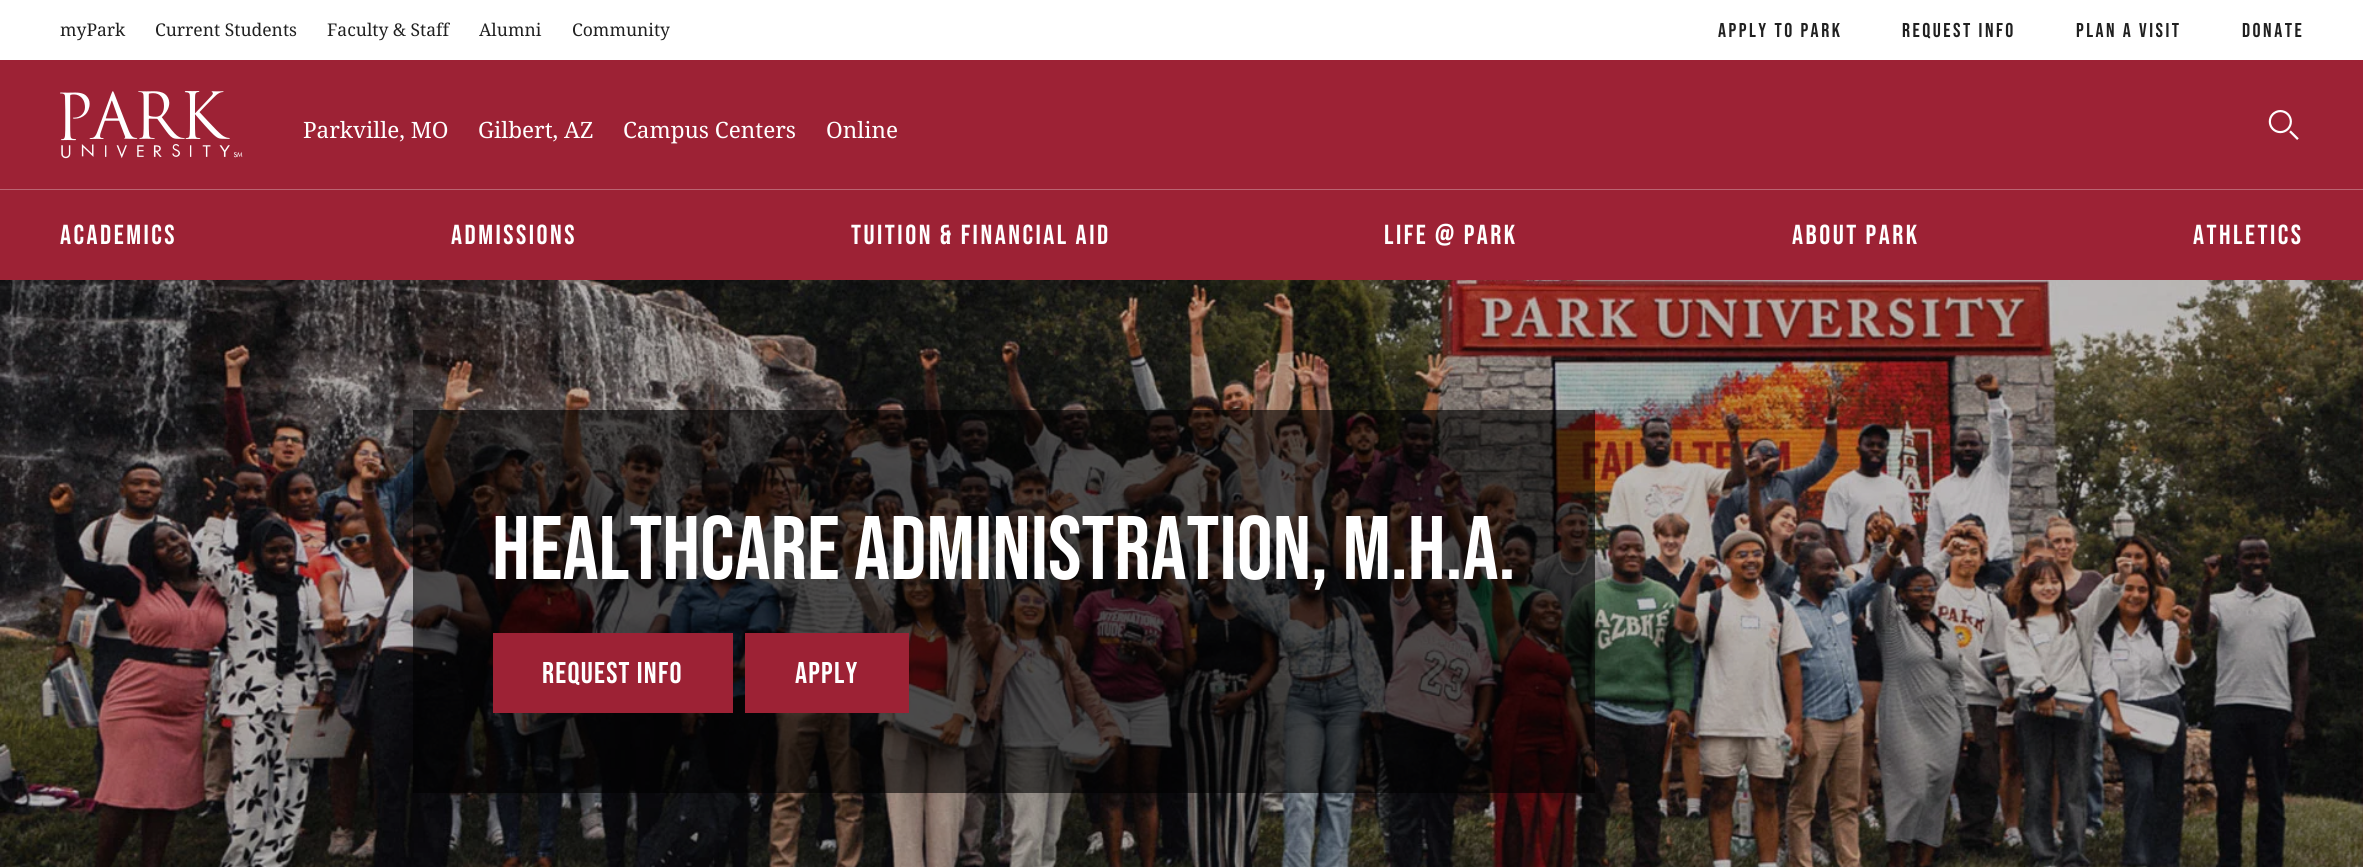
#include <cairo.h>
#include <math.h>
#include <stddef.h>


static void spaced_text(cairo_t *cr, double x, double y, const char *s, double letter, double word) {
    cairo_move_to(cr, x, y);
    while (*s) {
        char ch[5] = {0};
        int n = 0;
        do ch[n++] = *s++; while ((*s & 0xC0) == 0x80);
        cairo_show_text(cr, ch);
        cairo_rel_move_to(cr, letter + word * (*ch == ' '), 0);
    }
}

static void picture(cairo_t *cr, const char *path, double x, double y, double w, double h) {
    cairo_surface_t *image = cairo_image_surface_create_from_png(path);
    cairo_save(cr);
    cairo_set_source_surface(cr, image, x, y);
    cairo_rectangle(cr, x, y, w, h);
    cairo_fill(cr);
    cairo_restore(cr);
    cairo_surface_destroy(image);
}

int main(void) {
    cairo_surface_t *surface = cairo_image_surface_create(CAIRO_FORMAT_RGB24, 2363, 867);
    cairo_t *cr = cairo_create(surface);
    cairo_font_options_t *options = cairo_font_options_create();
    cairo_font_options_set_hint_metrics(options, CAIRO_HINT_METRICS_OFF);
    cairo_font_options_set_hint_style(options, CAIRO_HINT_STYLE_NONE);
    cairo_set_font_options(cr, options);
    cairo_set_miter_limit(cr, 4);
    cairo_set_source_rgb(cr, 1, 1, 1);
    cairo_paint(cr);
    cairo_set_source_rgb(cr, 0.616, 0.133, 0.208);
    cairo_rectangle(cr, 0, 60, 2363, 220);
    cairo_fill(cr);
    cairo_select_font_face(cr, "Noto Serif", CAIRO_FONT_SLANT_NORMAL, CAIRO_FONT_WEIGHT_NORMAL);
    cairo_set_font_size(cr, 17.5);
    cairo_set_source_rgb(cr, 0.125, 0.125, 0.125);
    cairo_move_to(cr, 60, 36);
    cairo_show_text(cr, "myPark");
    cairo_move_to(cr, 155, 36);
    cairo_show_text(cr, "Current Students");
    cairo_move_to(cr, 327, 36);
    cairo_show_text(cr, "Faculty & Staff");
    cairo_move_to(cr, 479, 36);
    cairo_show_text(cr, "Alumni");
    cairo_move_to(cr, 572, 36);
    cairo_show_text(cr, "Community");
    cairo_select_font_face(cr, "Bebas Neue", CAIRO_FONT_SLANT_NORMAL, CAIRO_FONT_WEIGHT_NORMAL);
    cairo_set_font_size(cr, 20);
    spaced_text(cr, 1718, 37, "Apply To Park", 2.5, 0);
    spaced_text(cr, 1902, 37, "Request Info", 2.5, 0);
    spaced_text(cr, 2076, 37, "Plan a Visit", 2.5, 0);
    spaced_text(cr, 2242, 37, "Donate", 2.5, 0);
    cairo_select_font_face(cr, "Noto Serif", CAIRO_FONT_SLANT_NORMAL, CAIRO_FONT_WEIGHT_NORMAL);
    cairo_set_font_size(cr, 22.5);
    cairo_set_source_rgb(cr, 1, 1, 1);
    cairo_move_to(cr, 303, 138);
    cairo_show_text(cr, "Parkville, MO");
    cairo_move_to(cr, 478, 138);
    cairo_show_text(cr, "Gilbert, AZ");
    cairo_move_to(cr, 623, 138);
    cairo_show_text(cr, "Campus Centers");
    cairo_move_to(cr, 826, 138);
    cairo_show_text(cr, "Online");
    cairo_select_font_face(cr, "Bebas Neue", CAIRO_FONT_SLANT_NORMAL, CAIRO_FONT_WEIGHT_NORMAL);
    cairo_set_font_size(cr, 27.5);
    spaced_text(cr, 60, 244, "Academics", 2.5, 0);
    spaced_text(cr, 451, 244, "Admissions", 2.5, 0);
    spaced_text(cr, 851, 244, "Tuition & Financial Aid", 2.5, 0);
    spaced_text(cr, 1384, 244, "Life @ Park", 2.5, 0);
    spaced_text(cr, 1792, 244, "About Park", 2.5, 0);
    spaced_text(cr, 2193, 244, "Athletics", 2.5, 0);
    picture(cr, "img1.png", 60, 91, 183, 68);
    picture(cr, "img2.png", 2268, 110, 31, 30);
    cairo_set_source_rgb(cr, 0.729, 0.392, 0.447);
    cairo_rectangle(cr, 0, 189, 2363, 1);
    cairo_fill(cr);
    picture(cr, "img3.png", 0, 280, 2363, 587);
    cairo_set_source_rgba(cr, 0, 0, 0, 0.6);
    cairo_rectangle(cr, 413, 410, 1182, 383);
    cairo_fill(cr);
    cairo_set_font_size(cr, 90);
    cairo_set_source_rgb(cr, 1, 1, 1);
    cairo_move_to(cr, 492, 579);
    cairo_show_text(cr, "Healthcare Administration, M.H.A.");
    cairo_set_source_rgb(cr, 0.616, 0.133, 0.208);
    cairo_rectangle(cr, 493, 633, 240, 80);
    cairo_fill(cr);
    cairo_set_font_size(cr, 30);
    cairo_set_source_rgb(cr, 1, 1, 1);
    spaced_text(cr, 542, 683, "Request Info", 1.25, 0);
    cairo_set_source_rgb(cr, 0.616, 0.133, 0.208);
    cairo_rectangle(cr, 745, 633, 164, 80);
    cairo_fill(cr);
    cairo_set_source_rgb(cr, 1, 1, 1);
    spaced_text(cr, 795, 683, "Apply", 1.25, 0);
    cairo_surface_write_to_png(surface, "page.png");
    cairo_font_options_destroy(options);
    cairo_destroy(cr);
    cairo_surface_destroy(surface);
    return 0;
}
